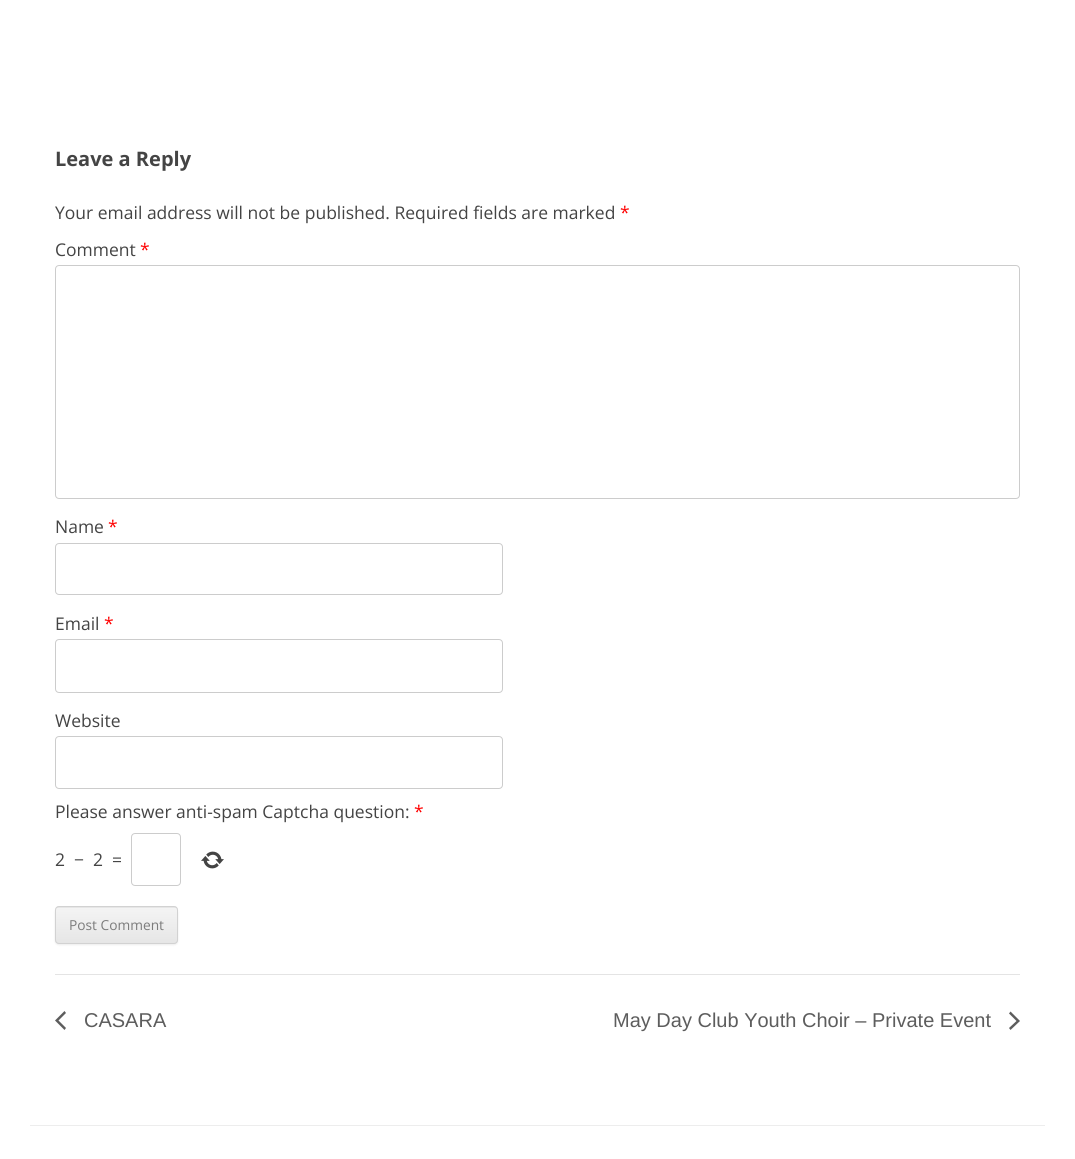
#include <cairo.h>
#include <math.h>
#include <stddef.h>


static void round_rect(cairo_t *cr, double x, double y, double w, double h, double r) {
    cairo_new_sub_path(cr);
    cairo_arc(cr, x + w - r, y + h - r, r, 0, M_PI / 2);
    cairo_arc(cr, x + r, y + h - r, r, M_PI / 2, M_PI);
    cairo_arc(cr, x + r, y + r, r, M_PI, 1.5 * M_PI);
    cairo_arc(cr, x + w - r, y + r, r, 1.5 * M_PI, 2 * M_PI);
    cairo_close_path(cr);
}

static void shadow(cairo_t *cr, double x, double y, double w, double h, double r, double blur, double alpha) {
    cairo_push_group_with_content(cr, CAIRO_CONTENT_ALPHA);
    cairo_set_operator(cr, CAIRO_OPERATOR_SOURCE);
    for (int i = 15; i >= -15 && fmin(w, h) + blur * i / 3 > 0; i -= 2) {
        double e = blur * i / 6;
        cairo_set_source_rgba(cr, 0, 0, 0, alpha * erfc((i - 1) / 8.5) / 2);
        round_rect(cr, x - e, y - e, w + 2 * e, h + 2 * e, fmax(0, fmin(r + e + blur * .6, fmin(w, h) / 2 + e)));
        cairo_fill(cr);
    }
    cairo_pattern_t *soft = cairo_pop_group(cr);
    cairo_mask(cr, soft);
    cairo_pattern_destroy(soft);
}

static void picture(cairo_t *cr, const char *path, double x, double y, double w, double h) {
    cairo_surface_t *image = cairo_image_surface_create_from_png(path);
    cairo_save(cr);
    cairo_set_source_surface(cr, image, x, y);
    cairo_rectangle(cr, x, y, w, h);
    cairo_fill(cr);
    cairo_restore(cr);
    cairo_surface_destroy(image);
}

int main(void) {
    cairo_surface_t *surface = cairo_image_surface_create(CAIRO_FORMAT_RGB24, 1075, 1159);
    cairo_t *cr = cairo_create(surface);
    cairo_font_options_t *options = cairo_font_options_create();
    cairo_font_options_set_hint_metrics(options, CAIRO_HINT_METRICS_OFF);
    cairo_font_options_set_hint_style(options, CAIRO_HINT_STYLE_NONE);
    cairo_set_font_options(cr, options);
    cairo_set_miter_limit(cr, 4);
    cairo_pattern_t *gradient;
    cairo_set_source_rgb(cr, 1, 1, 1);
    cairo_paint(cr);
    cairo_select_font_face(cr, "Open Sans", CAIRO_FONT_SLANT_NORMAL, CAIRO_FONT_WEIGHT_BOLD);
    cairo_set_font_size(cr, 20);
    cairo_set_source_rgb(cr, 0.267, 0.267, 0.267);
    cairo_move_to(cr, 55, 166);
    cairo_show_text(cr, "Leave a Reply");
    cairo_select_font_face(cr, "Open Sans", CAIRO_FONT_SLANT_NORMAL, CAIRO_FONT_WEIGHT_NORMAL);
    cairo_set_font_size(cr, 17.5);
    cairo_move_to(cr, 55, 219);
    cairo_show_text(cr, "Your email address will not be published. Required fields are marked");
    cairo_set_source_rgb(cr, 1, 0, 0);
    cairo_move_to(cr, 620, 219);
    cairo_show_text(cr, "*");
    cairo_set_source_rgb(cr, 0.267, 0.267, 0.267);
    cairo_move_to(cr, 55, 256);
    cairo_show_text(cr, "Comment");
    cairo_set_source_rgb(cr, 1, 0, 0);
    cairo_move_to(cr, 140, 256);
    cairo_show_text(cr, "*");
    round_rect(cr, 55.5, 265.5, 964, 233, 3.5);
    cairo_set_source_rgb(cr, 0.8, 0.8, 0.8);
    cairo_set_line_width(cr, 1);
    cairo_stroke(cr);
    cairo_set_source_rgb(cr, 0.267, 0.267, 0.267);
    cairo_move_to(cr, 55, 533);
    cairo_show_text(cr, "Name");
    cairo_set_source_rgb(cr, 1, 0, 0);
    cairo_move_to(cr, 108, 533);
    cairo_show_text(cr, "*");
    round_rect(cr, 55.5, 543.5, 447, 51, 3.5);
    cairo_set_source_rgb(cr, 0.8, 0.8, 0.8);
    cairo_stroke(cr);
    cairo_set_source_rgb(cr, 0.267, 0.267, 0.267);
    cairo_move_to(cr, 55, 630);
    cairo_show_text(cr, "Email");
    cairo_set_source_rgb(cr, 1, 0, 0);
    cairo_move_to(cr, 104, 630);
    cairo_show_text(cr, "*");
    round_rect(cr, 55.5, 639.5, 447, 53, 3.5);
    cairo_set_source_rgb(cr, 0.8, 0.8, 0.8);
    cairo_stroke(cr);
    cairo_set_source_rgb(cr, 0.267, 0.267, 0.267);
    cairo_move_to(cr, 55, 727);
    cairo_show_text(cr, "Website");
    round_rect(cr, 55.5, 736.5, 447, 52, 3.5);
    cairo_set_source_rgb(cr, 0.8, 0.8, 0.8);
    cairo_stroke(cr);
    cairo_set_source_rgb(cr, 0.267, 0.267, 0.267);
    cairo_move_to(cr, 55, 818);
    cairo_show_text(cr, "Please answer anti-spam Captcha question:");
    cairo_set_source_rgb(cr, 1, 0, 0);
    cairo_move_to(cr, 414, 818);
    cairo_show_text(cr, "*");
    cairo_set_source_rgb(cr, 0.267, 0.267, 0.267);
    cairo_move_to(cr, 55, 866);
    cairo_show_text(cr, "2");
    cairo_move_to(cr, 74, 866);
    cairo_show_text(cr, "−");
    cairo_move_to(cr, 93, 866);
    cairo_show_text(cr, "2");
    cairo_move_to(cr, 112, 866);
    cairo_show_text(cr, "=");
    round_rect(cr, 131.5, 833.5, 49, 52, 3.5);
    cairo_set_source_rgb(cr, 0.8, 0.8, 0.8);
    cairo_stroke(cr);
    picture(cr, "img1.png", 201, 851, 23, 18);
    cairo_set_source_rgb(cr, 0.251, 0.251, 0.251);
    shadow(cr, 55, 908, 123, 37, 4, 1, 0.1);
    cairo_set_source_rgb(cr, 0.902, 0.902, 0.902);
    round_rect(cr, 55, 906, 123, 38, 4);
    cairo_fill(cr);
    cairo_save(cr);
    round_rect(cr, 55, 906, 123, 38, 4);
    cairo_clip(cr);
    gradient = cairo_pattern_create_linear(116, 908, 116, 943);
    cairo_pattern_add_color_stop_rgba(gradient, 0, 0.957, 0.957, 0.957, 1);
    cairo_pattern_add_color_stop_rgba(gradient, 1, 0.902, 0.902, 0.902, 1);
    cairo_set_source(cr, gradient);
    cairo_pattern_destroy(gradient);
    cairo_rectangle(cr, 55, 908, 123, 35);
    cairo_fill(cr);
    cairo_restore(cr);
    round_rect(cr, 55.5, 906.5, 122, 37, 3.5);
    cairo_set_source_rgb(cr, 0.824, 0.824, 0.824);
    cairo_stroke(cr);
    cairo_set_font_size(cr, 13.75);
    cairo_set_source_rgb(cr, 0.486, 0.486, 0.486);
    cairo_move_to(cr, 69, 930);
    cairo_show_text(cr, "Post Comment");
    cairo_set_source_rgb(cr, 0.894, 0.894, 0.894);
    cairo_rectangle(cr, 55, 974, 965, 1);
    cairo_fill(cr);
    cairo_set_source_rgb(cr, 0.365, 0.365, 0.365);
    cairo_new_path(cr);
    cairo_move_to(cr, 66, 1028);
    cairo_line_to(cr, 64.5, 1030);
    cairo_line_to(cr, 55, 1020.5);
    cairo_line_to(cr, 64.5, 1011);
    cairo_line_to(cr, 66, 1013);
    cairo_line_to(cr, 58.5, 1020.5);
    cairo_close_path(cr);
    cairo_fill(cr);
    cairo_select_font_face(cr, "Liberation Sans", CAIRO_FONT_SLANT_NORMAL, CAIRO_FONT_WEIGHT_NORMAL);
    cairo_set_font_size(cr, 20);
    cairo_move_to(cr, 84, 1027);
    cairo_show_text(cr, "CASARA");
    cairo_move_to(cr, 613, 1027);
    cairo_show_text(cr, "May Day Club Youth Choir – Private Event");
    cairo_new_path(cr);
    cairo_move_to(cr, 1009, 1013.5);
    cairo_line_to(cr, 1010.5, 1011.5);
    cairo_line_to(cr, 1020, 1021);
    cairo_line_to(cr, 1010.5, 1030);
    cairo_line_to(cr, 1009, 1028);
    cairo_line_to(cr, 1016.5, 1021);
    cairo_close_path(cr);
    cairo_fill(cr);
    cairo_set_source_rgb(cr, 0.929, 0.929, 0.929);
    cairo_rectangle(cr, 30, 1125, 1015, 1);
    cairo_fill(cr);
    cairo_surface_write_to_png(surface, "page.png");
    cairo_font_options_destroy(options);
    cairo_destroy(cr);
    cairo_surface_destroy(surface);
    return 0;
}
